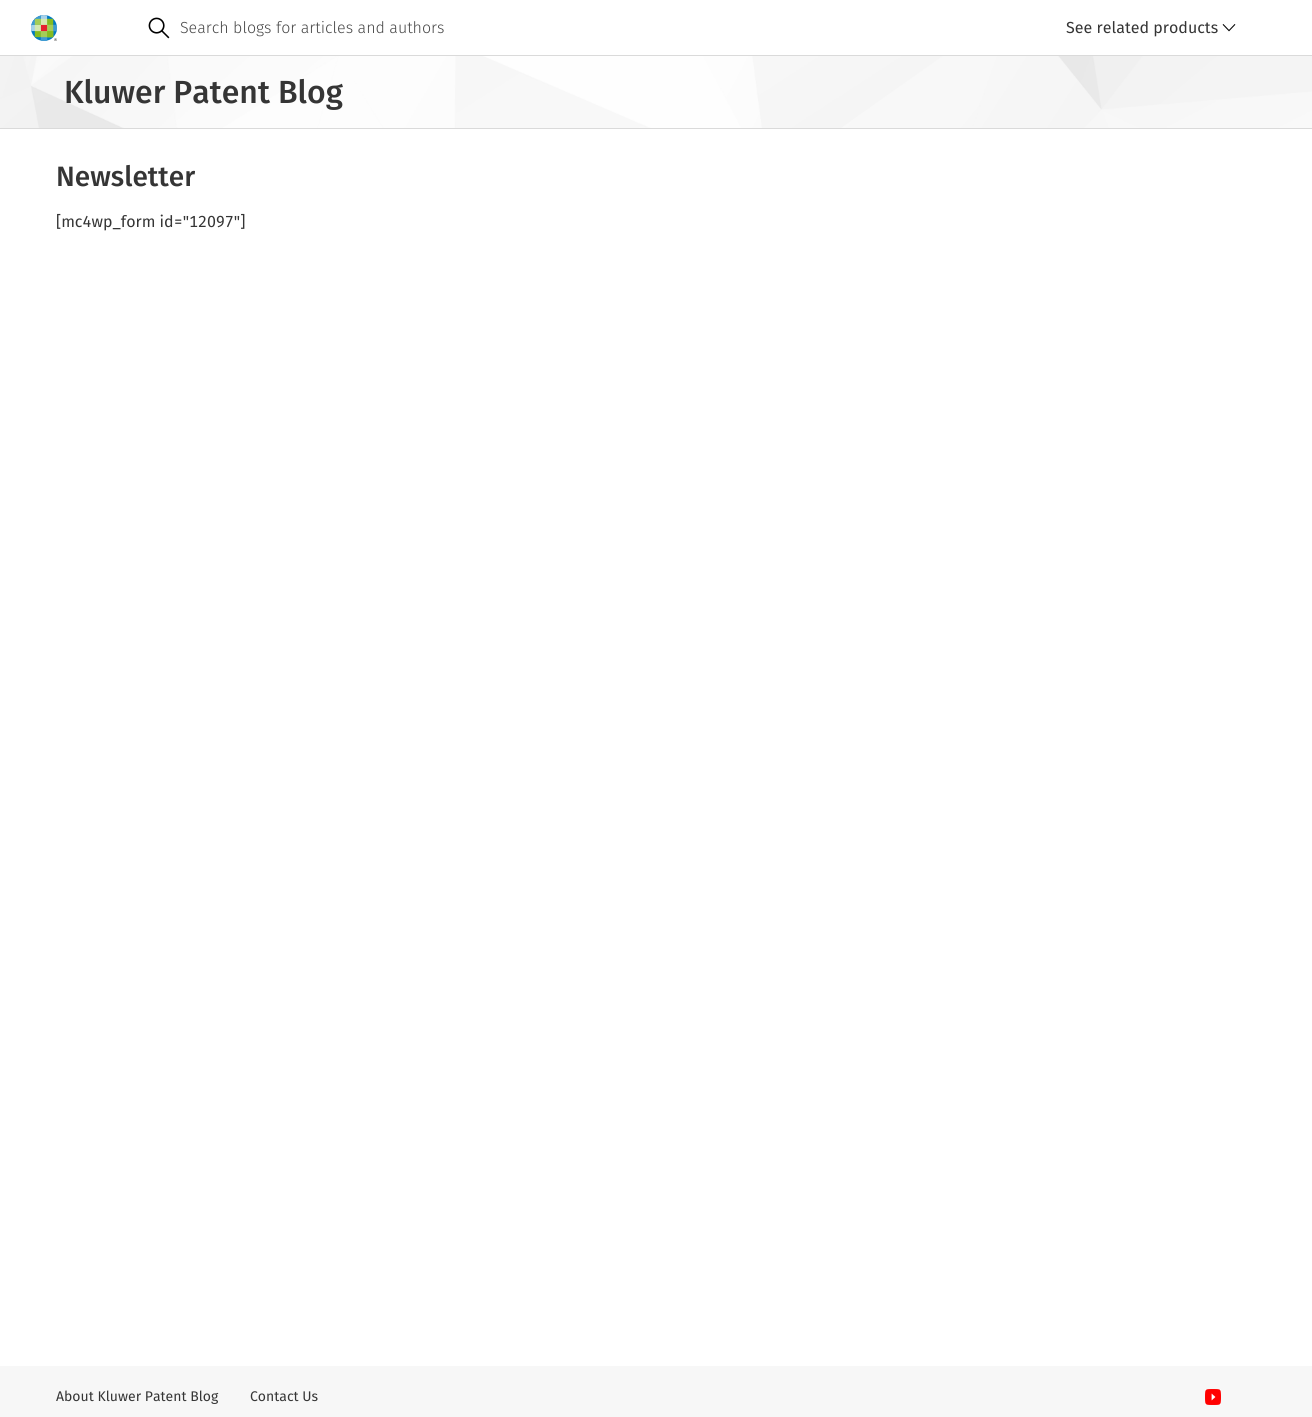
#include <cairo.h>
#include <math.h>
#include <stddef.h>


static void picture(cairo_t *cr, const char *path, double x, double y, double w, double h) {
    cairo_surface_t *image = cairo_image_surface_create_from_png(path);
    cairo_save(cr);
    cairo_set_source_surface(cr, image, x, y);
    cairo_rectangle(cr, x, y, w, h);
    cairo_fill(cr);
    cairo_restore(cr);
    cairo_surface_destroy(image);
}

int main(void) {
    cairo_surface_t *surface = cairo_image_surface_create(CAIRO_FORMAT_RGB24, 1312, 1417);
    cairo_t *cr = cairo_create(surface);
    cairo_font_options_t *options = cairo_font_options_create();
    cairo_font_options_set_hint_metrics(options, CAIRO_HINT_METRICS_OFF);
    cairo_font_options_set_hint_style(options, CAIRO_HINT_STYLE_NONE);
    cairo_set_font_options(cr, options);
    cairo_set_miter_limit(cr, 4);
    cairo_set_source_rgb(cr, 1, 1, 1);
    cairo_paint(cr);
    cairo_set_source_rgb(cr, 0.855, 0.855, 0.855);
    cairo_rectangle(cr, 0, 55, 1312, 1);
    cairo_fill(cr);
    picture(cr, "img1.png", 31, 15, 26, 26);
    picture(cr, "img2.png", 148, 17, 22, 22);
    cairo_select_font_face(cr, "Fira Sans Light", CAIRO_FONT_SLANT_NORMAL, CAIRO_FONT_WEIGHT_NORMAL);
    cairo_set_font_size(cr, 16);
    cairo_set_source_rgb(cr, 0.278, 0.278, 0.278);
    cairo_move_to(cr, 180, 33);
    cairo_show_text(cr, "Search blogs for articles and authors");
    cairo_select_font_face(cr, "Fira Sans", CAIRO_FONT_SLANT_NORMAL, CAIRO_FONT_WEIGHT_NORMAL);
    cairo_set_source_rgb(cr, 0.208, 0.208, 0.208);
    cairo_move_to(cr, 1066, 33);
    cairo_show_text(cr, "See related products");
    picture(cr, "img3.png", 1222, 24, 14, 8);
    picture(cr, "img4.png", 0, 56, 1312, 72);
    cairo_set_source_rgb(cr, 0.855, 0.855, 0.855);
    cairo_rectangle(cr, 0, 128, 1312, 1);
    cairo_fill(cr);
    cairo_select_font_face(cr, "Fira Sans Medium", CAIRO_FONT_SLANT_NORMAL, CAIRO_FONT_WEIGHT_NORMAL);
    cairo_set_font_size(cr, 32);
    cairo_set_source_rgb(cr, 0.208, 0.208, 0.208);
    cairo_move_to(cr, 64, 103);
    cairo_show_text(cr, "Kluwer Patent Blog");
    cairo_set_font_size(cr, 28);
    cairo_move_to(cr, 56, 186);
    cairo_show_text(cr, "Newsletter");
    cairo_select_font_face(cr, "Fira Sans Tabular", CAIRO_FONT_SLANT_NORMAL, CAIRO_FONT_WEIGHT_NORMAL);
    cairo_set_font_size(cr, 16);
    cairo_move_to(cr, 56, 227);
    cairo_show_text(cr, "[mc4wp_form id=\"12097\"]");
    cairo_set_source_rgb(cr, 0.965, 0.965, 0.965);
    cairo_rectangle(cr, 0, 1366, 1312, 51);
    cairo_fill(cr);
    cairo_select_font_face(cr, "Fira Sans", CAIRO_FONT_SLANT_NORMAL, CAIRO_FONT_WEIGHT_NORMAL);
    cairo_set_font_size(cr, 14);
    cairo_set_source_rgb(cr, 0.208, 0.208, 0.208);
    cairo_move_to(cr, 56, 1401);
    cairo_show_text(cr, "About Kluwer Patent Blog");
    cairo_move_to(cr, 250, 1401);
    cairo_show_text(cr, "Contact Us");
    picture(cr, "img5.png", 1205, 1389, 16, 16);
    cairo_surface_write_to_png(surface, "page.png");
    cairo_font_options_destroy(options);
    cairo_destroy(cr);
    cairo_surface_destroy(surface);
    return 0;
}
